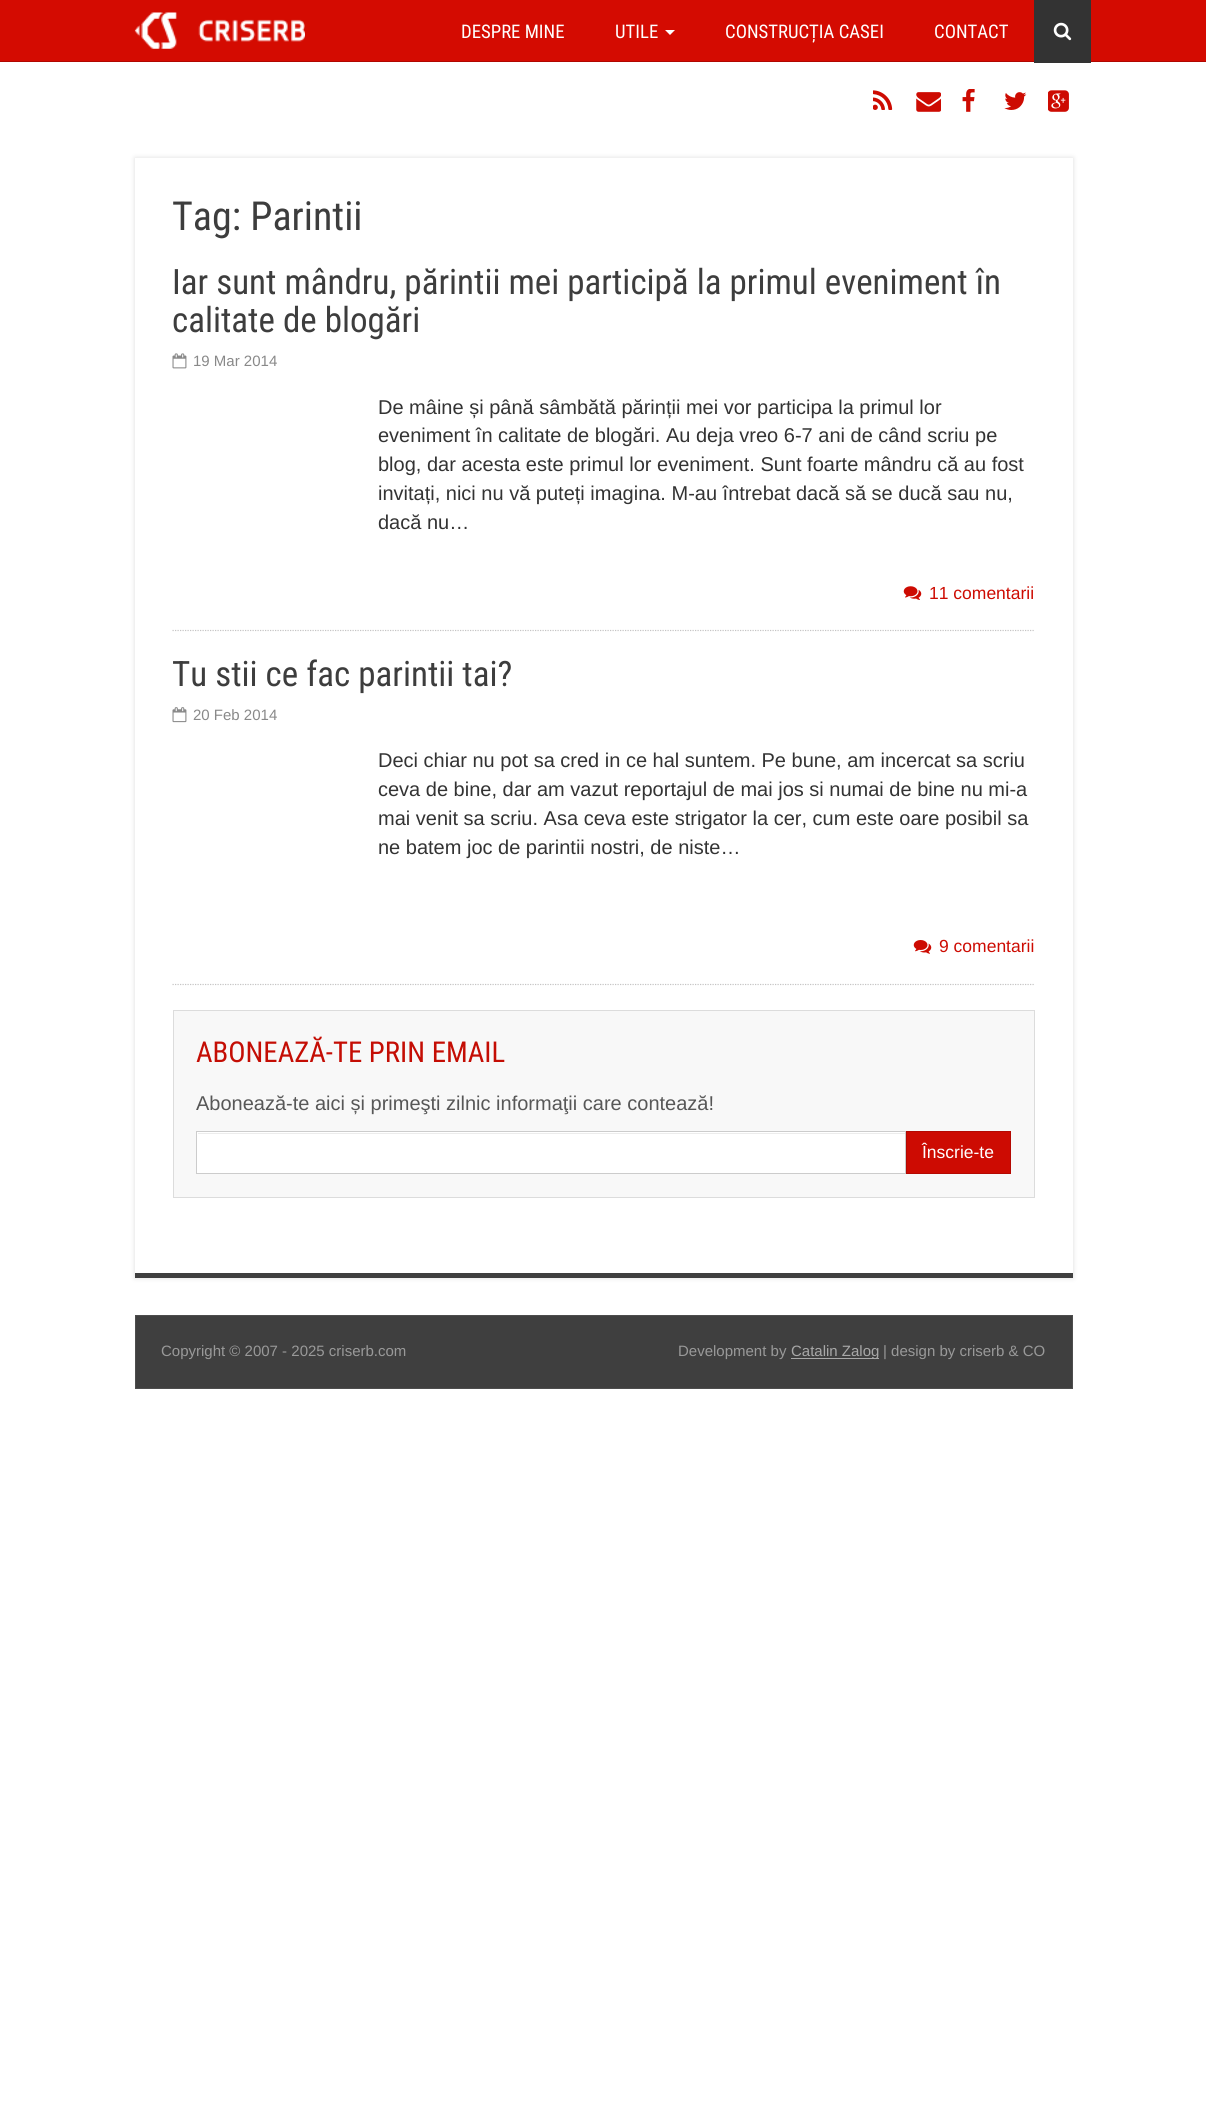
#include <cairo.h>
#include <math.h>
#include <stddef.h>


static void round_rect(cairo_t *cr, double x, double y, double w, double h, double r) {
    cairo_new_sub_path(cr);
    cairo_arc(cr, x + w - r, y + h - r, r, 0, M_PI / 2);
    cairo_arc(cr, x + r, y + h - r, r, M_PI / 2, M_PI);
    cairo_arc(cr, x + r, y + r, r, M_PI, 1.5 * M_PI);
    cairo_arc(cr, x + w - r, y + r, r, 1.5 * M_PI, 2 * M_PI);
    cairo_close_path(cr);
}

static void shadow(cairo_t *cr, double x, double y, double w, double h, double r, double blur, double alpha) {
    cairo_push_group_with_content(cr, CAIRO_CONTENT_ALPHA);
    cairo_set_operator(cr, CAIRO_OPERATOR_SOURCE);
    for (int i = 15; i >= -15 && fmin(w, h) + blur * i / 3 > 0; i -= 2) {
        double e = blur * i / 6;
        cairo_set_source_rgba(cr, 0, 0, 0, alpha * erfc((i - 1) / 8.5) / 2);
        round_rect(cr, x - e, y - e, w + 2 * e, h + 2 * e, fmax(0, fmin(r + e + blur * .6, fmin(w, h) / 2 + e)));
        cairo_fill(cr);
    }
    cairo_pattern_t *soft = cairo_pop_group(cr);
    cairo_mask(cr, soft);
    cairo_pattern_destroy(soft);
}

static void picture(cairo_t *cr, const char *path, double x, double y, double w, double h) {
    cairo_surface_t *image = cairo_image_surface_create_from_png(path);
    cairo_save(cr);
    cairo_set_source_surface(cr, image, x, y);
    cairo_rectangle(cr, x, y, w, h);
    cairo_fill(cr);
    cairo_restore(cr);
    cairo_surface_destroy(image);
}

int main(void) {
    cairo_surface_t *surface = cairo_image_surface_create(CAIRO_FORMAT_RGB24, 1206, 2117);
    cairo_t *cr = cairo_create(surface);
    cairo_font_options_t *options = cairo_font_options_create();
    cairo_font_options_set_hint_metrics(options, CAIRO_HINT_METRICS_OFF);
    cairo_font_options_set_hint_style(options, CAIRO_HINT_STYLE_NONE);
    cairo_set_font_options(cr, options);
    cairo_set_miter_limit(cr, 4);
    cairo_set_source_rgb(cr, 1, 1, 1);
    cairo_paint(cr);
    cairo_set_source_rgb(cr, 0.831, 0.043, 0.004);
    cairo_rectangle(cr, 0, 0, 1206, 61);
    cairo_fill(cr);
    cairo_set_source_rgb(cr, 0.69, 0.031, 0);
    cairo_rectangle(cr, 0, 61, 1206, 1);
    cairo_fill(cr);
    picture(cr, "img1.png", 134, 12, 171, 37);
    cairo_select_font_face(cr, "Roboto Condensed", CAIRO_FONT_SLANT_NORMAL, CAIRO_FONT_WEIGHT_NORMAL);
    cairo_set_font_size(cr, 18.75);
    cairo_set_source_rgb(cr, 1, 1, 1);
    cairo_move_to(cr, 461, 38);
    cairo_show_text(cr, "DESPRE MINE");
    cairo_move_to(cr, 615, 38);
    cairo_show_text(cr, "UTILE");
    cairo_new_path(cr);
    cairo_move_to(cr, 665, 30);
    cairo_line_to(cr, 675, 30);
    cairo_line_to(cr, 670, 35);
    cairo_close_path(cr);
    cairo_fill(cr);
    cairo_move_to(cr, 725, 38);
    cairo_show_text(cr, "CONSTRUCȚIA CASEI");
    cairo_move_to(cr, 934, 38);
    cairo_show_text(cr, "CONTACT");
    cairo_set_source_rgb(cr, 0.2, 0.2, 0.2);
    cairo_rectangle(cr, 1034, 0, 57, 63);
    cairo_fill(cr);
    picture(cr, "img2.png", 1053, 22, 19, 19);
    picture(cr, "img3.png", 873, 90, 20, 20);
    picture(cr, "img4.png", 916, 92, 25, 20);
    picture(cr, "img5.png", 962, 89, 13, 23);
    picture(cr, "img6.png", 1004, 92, 23, 18);
    picture(cr, "img7.png", 1048, 90, 21, 22);
    cairo_set_source_rgb(cr, 0.867, 0.867, 0.867);
    shadow(cr, 135, 158, 938, 1120, 0, 2.5, 1);
    cairo_set_source_rgb(cr, 1, 1, 1);
    cairo_rectangle(cr, 135, 158, 938, 1115);
    cairo_fill(cr);
    cairo_set_source_rgb(cr, 0.247, 0.247, 0.247);
    cairo_rectangle(cr, 135, 1273, 938, 5);
    cairo_fill(cr);
    cairo_set_font_size(cr, 40);
    cairo_set_source_rgb(cr, 0.239, 0.239, 0.239);
    cairo_move_to(cr, 172, 230);
    cairo_show_text(cr, "Tag: Parintii");
    cairo_new_path(cr);
    cairo_move_to(cr, 172.5, 630.5);
    cairo_line_to(cr, 1035, 630.5);
    cairo_set_source_rgb(cr, 0.773, 0.769, 0.769);
    cairo_set_line_width(cr, 1.2);
    cairo_set_dash(cr, (double[]){1.25, 1.25}, 2, 0);
    cairo_stroke(cr);
    cairo_set_font_size(cr, 35);
    cairo_set_source_rgb(cr, 0.239, 0.239, 0.239);
    cairo_move_to(cr, 172, 294);
    cairo_show_text(cr, "Iar sunt mândru, părintii mei participă la primul eveniment în");
    cairo_move_to(cr, 172, 332);
    cairo_show_text(cr, "calitate de blogări");
    picture(cr, "img8.png", 172, 353, 15, 16);
    cairo_select_font_face(cr, "Liberation Sans", CAIRO_FONT_SLANT_NORMAL, CAIRO_FONT_WEIGHT_NORMAL);
    cairo_set_font_size(cr, 15);
    cairo_set_source_rgb(cr, 0.537, 0.537, 0.537);
    cairo_move_to(cr, 193, 366);
    cairo_show_text(cr, "19 Mar 2014");
    cairo_set_font_size(cr, 20);
    cairo_set_source_rgb(cr, 0.2, 0.2, 0.2);
    cairo_move_to(cr, 378, 414);
    cairo_show_text(cr, "De mâine și până sâmbătă părinții mei vor participa la primul lor");
    cairo_move_to(cr, 378, 442);
    cairo_show_text(cr, "eveniment în calitate de blogări. Au deja vreo 6-7 ani de când scriu pe");
    cairo_move_to(cr, 378, 471);
    cairo_show_text(cr, "blog, dar acesta este primul lor eveniment. Sunt foarte mândru că au fost");
    cairo_move_to(cr, 378, 500);
    cairo_show_text(cr, "invitați, nici nu vă puteți imagina. M-au întrebat dacă să se ducă sau nu,");
    cairo_move_to(cr, 378, 529);
    cairo_show_text(cr, "dacă nu…");
    picture(cr, "img9.png", 903, 586, 19, 14);
    cairo_set_font_size(cr, 17.5);
    cairo_set_source_rgb(cr, 0.804, 0.043, 0.008);
    cairo_move_to(cr, 929, 599);
    cairo_show_text(cr, "11 comentarii");
    cairo_new_path(cr);
    cairo_move_to(cr, 172.5, 984.5);
    cairo_line_to(cr, 1035, 984.5);
    cairo_set_source_rgb(cr, 0.773, 0.769, 0.769);
    cairo_stroke(cr);
    cairo_select_font_face(cr, "Roboto Condensed", CAIRO_FONT_SLANT_NORMAL, CAIRO_FONT_WEIGHT_NORMAL);
    cairo_set_font_size(cr, 35);
    cairo_set_source_rgb(cr, 0.239, 0.239, 0.239);
    cairo_move_to(cr, 172, 686);
    cairo_show_text(cr, "Tu stii ce fac parintii tai?");
    picture(cr, "img10.png", 172, 707, 15, 16);
    cairo_select_font_face(cr, "Liberation Sans", CAIRO_FONT_SLANT_NORMAL, CAIRO_FONT_WEIGHT_NORMAL);
    cairo_set_font_size(cr, 15);
    cairo_set_source_rgb(cr, 0.537, 0.537, 0.537);
    cairo_move_to(cr, 193, 720);
    cairo_show_text(cr, "20 Feb 2014");
    cairo_set_font_size(cr, 20);
    cairo_set_source_rgb(cr, 0.2, 0.2, 0.2);
    cairo_move_to(cr, 378, 767);
    cairo_show_text(cr, "Deci chiar nu pot sa cred in ce hal suntem. Pe bune, am incercat sa scriu");
    cairo_move_to(cr, 378, 796);
    cairo_show_text(cr, "ceva de bine, dar am vazut reportajul de mai jos si numai de bine nu mi-a");
    cairo_move_to(cr, 378, 825);
    cairo_show_text(cr, "mai venit sa scriu. Asa ceva este strigator la cer, cum este oare posibil sa");
    cairo_move_to(cr, 378, 854);
    cairo_show_text(cr, "ne batem joc de parintii nostri, de niste…");
    picture(cr, "img11.png", 913, 940, 19, 14);
    cairo_set_font_size(cr, 17.5);
    cairo_set_source_rgb(cr, 0.804, 0.043, 0.008);
    cairo_move_to(cr, 939, 952);
    cairo_show_text(cr, "9 comentarii");
    cairo_set_source_rgb(cr, 0.969, 0.969, 0.969);
    cairo_rectangle(cr, 173.5, 1010.5, 861, 187);
    cairo_fill_preserve(cr);
    cairo_set_source_rgb(cr, 0.863, 0.863, 0.863);
    cairo_set_line_width(cr, 1);
    cairo_set_dash(cr, NULL, 0, 0);
    cairo_stroke(cr);
    cairo_select_font_face(cr, "Roboto Condensed", CAIRO_FONT_SLANT_NORMAL, CAIRO_FONT_WEIGHT_NORMAL);
    cairo_set_font_size(cr, 28.75);
    cairo_set_source_rgb(cr, 0.769, 0.051, 0.016);
    cairo_move_to(cr, 196, 1062);
    cairo_show_text(cr, "ABONEAZĂ-TE PRIN EMAIL");
    cairo_select_font_face(cr, "Liberation Sans", CAIRO_FONT_SLANT_NORMAL, CAIRO_FONT_WEIGHT_NORMAL);
    cairo_set_font_size(cr, 20);
    cairo_set_source_rgb(cr, 0.341, 0.341, 0.341);
    cairo_move_to(cr, 196, 1110);
    cairo_show_text(cr, "Abonează-te aici și primeşti zilnic informaţii care contează!");
    cairo_set_source_rgb(cr, 1, 1, 1);
    cairo_rectangle(cr, 197, 1132, 708, 41);
    cairo_fill(cr);
    cairo_set_source_rgb(cr, 0.925, 0.925, 0.925);
    cairo_rectangle(cr, 198, 1133, 707, 1);
    cairo_fill(cr);
    cairo_rectangle(cr, 196.5, 1131.5, 709, 42);
    cairo_set_source_rgb(cr, 0.8, 0.8, 0.8);
    cairo_stroke(cr);
    cairo_set_source_rgb(cr, 0.804, 0.043, 0.008);
    cairo_rectangle(cr, 906.5, 1131.5, 104, 42);
    cairo_fill_preserve(cr);
    cairo_set_source_rgb(cr, 0.706, 0.039, 0.008);
    cairo_stroke(cr);
    cairo_set_font_size(cr, 17.5);
    cairo_set_source_rgb(cr, 1, 1, 1);
    cairo_move_to(cr, 922, 1158);
    cairo_show_text(cr, "Înscrie-te");
    cairo_set_source_rgb(cr, 0.247, 0.247, 0.247);
    cairo_rectangle(cr, 135.5, 1315.5, 937, 73);
    cairo_fill_preserve(cr);
    cairo_set_source_rgb(cr, 0.302, 0.302, 0.302);
    cairo_stroke(cr);
    cairo_set_font_size(cr, 15);
    cairo_set_source_rgb(cr, 0.6, 0.6, 0.6);
    cairo_move_to(cr, 161, 1356);
    cairo_show_text(cr, "Copyright © 2007 - 2025 criserb.com");
    cairo_move_to(cr, 678, 1356);
    cairo_show_text(cr, "Development by");
    cairo_set_source_rgb(cr, 0.659, 0.659, 0.659);
    cairo_rectangle(cr, 791, 1358, 88, 1);
    cairo_fill(cr);
    cairo_move_to(cr, 791, 1356);
    cairo_show_text(cr, "Catalin Zalog");
    cairo_set_source_rgb(cr, 0.6, 0.6, 0.6);
    cairo_move_to(cr, 883, 1356);
    cairo_show_text(cr, "| design by criserb & CO");
    cairo_surface_write_to_png(surface, "page.png");
    cairo_font_options_destroy(options);
    cairo_destroy(cr);
    cairo_surface_destroy(surface);
    return 0;
}
